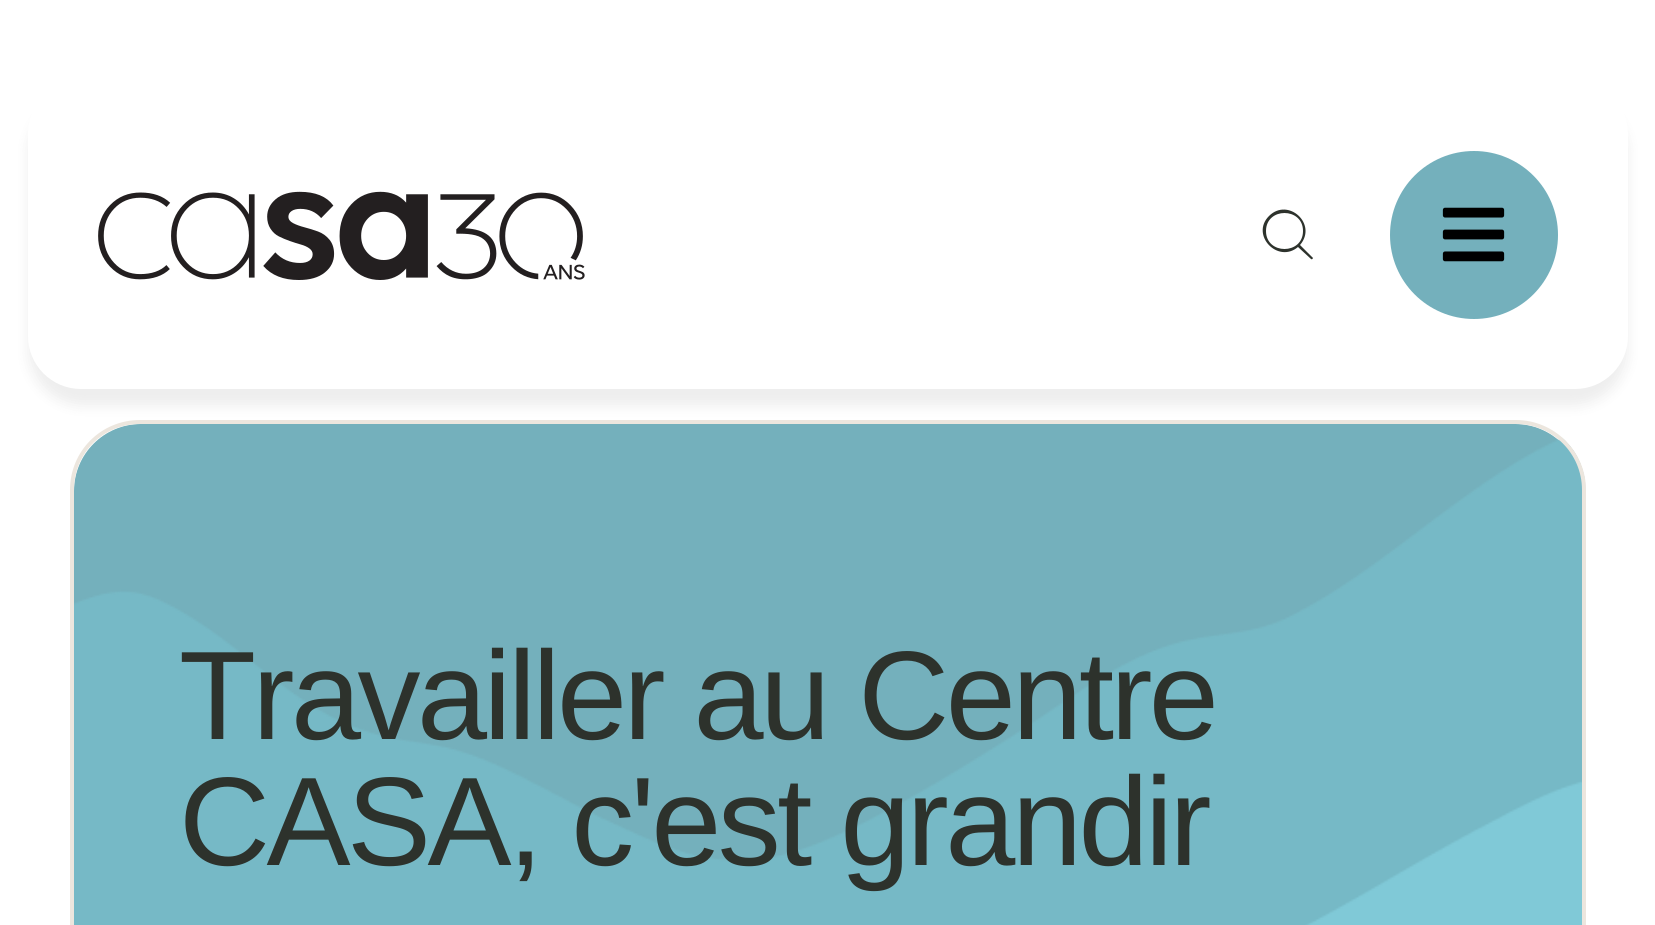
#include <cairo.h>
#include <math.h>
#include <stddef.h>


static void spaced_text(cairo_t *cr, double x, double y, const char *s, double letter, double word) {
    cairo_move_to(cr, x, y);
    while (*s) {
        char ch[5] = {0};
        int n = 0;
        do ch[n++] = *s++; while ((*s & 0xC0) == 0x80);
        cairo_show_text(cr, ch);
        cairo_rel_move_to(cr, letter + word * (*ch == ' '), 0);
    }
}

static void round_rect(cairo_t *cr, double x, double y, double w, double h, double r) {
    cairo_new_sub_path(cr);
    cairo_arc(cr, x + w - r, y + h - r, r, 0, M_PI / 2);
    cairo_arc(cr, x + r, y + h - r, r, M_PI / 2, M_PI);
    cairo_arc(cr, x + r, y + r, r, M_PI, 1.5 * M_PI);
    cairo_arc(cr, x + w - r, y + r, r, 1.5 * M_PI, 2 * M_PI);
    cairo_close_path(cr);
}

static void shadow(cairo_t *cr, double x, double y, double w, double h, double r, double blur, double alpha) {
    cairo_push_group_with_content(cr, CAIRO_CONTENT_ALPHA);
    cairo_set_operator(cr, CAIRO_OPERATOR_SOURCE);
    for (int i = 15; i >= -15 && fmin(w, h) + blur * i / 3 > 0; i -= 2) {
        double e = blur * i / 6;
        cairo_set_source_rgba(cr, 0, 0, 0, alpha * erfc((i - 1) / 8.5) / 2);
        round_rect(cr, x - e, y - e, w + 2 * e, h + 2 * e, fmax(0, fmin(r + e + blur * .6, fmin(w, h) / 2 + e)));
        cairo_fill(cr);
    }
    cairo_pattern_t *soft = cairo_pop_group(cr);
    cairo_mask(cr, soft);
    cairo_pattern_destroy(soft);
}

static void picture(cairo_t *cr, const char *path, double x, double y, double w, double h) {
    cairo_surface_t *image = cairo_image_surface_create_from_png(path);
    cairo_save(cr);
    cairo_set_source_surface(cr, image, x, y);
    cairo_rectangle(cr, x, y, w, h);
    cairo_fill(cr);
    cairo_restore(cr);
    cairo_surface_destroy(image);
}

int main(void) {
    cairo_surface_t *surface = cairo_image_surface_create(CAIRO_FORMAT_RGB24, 1655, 925);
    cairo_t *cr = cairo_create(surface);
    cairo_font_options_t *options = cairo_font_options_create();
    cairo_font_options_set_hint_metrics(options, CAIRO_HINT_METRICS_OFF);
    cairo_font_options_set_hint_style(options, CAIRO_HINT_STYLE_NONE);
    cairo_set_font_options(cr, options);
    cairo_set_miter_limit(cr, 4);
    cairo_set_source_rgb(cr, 1, 1, 1);
    cairo_paint(cr);
    cairo_set_source_rgb(cr, 0.455, 0.69, 0.737);
    cairo_new_path(cr);
    cairo_move_to(cr, 141, 424);
    cairo_line_to(cr, 1515, 424);
    cairo_curve_to(cr, 1552, 424, 1582, 454, 1582, 491);
    cairo_line_to(cr, 1582, 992);
    cairo_line_to(cr, 74, 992);
    cairo_line_to(cr, 74, 491);
    cairo_curve_to(cr, 74, 454, 104, 424, 141, 424);
    cairo_close_path(cr);
    cairo_fill(cr);
    picture(cr, "img3.png", 74, 437, 1512, 488);
    cairo_set_source_rgb(cr, 0.922, 0.902, 0.871);
    cairo_set_fill_rule(cr, CAIRO_FILL_RULE_EVEN_ODD);
    cairo_new_path(cr);
    cairo_move_to(cr, 140, 420);
    cairo_line_to(cr, 1516, 420);
    cairo_curve_to(cr, 1554, 420, 1586, 451, 1586, 490);
    cairo_line_to(cr, 1586, 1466);
    cairo_line_to(cr, 70, 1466);
    cairo_line_to(cr, 70, 490);
    cairo_curve_to(cr, 70, 451, 101, 420, 140, 420);
    cairo_close_path(cr);
    cairo_move_to(cr, 140, 424);
    cairo_line_to(cr, 1516, 424);
    cairo_curve_to(cr, 1552, 424, 1582, 453, 1582, 490);
    cairo_line_to(cr, 1582, 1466);
    cairo_line_to(cr, 74, 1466);
    cairo_line_to(cr, 74, 490);
    cairo_curve_to(cr, 74, 453, 103, 424, 140, 424);
    cairo_close_path(cr);
    cairo_fill(cr);
    cairo_set_source_rgb(cr, 0, 0, 0);
    shadow(cr, 28, 98, 1600, 308, 53, 7, 0.07);
    cairo_set_source_rgb(cr, 1, 1, 1);
    round_rect(cr, 28, 81, 1600, 308, 53);
    cairo_fill(cr);
    picture(cr, "img1.png", 98, 191, 487, 89);
    cairo_set_source_rgb(cr, 0.176, 0.196, 0.173);
    cairo_set_fill_rule(cr, CAIRO_FILL_RULE_WINDING);
    cairo_new_path(cr);
    cairo_move_to(cr, 1312, 257);
    cairo_line_to(cr, 1300, 245);
    cairo_curve_to(cr, 1318, 224, 1288, 197, 1269, 216);
    cairo_curve_to(cr, 1250, 235, 1278, 264, 1298, 247);
    cairo_line_to(cr, 1311, 259);
    cairo_curve_to(cr, 1312, 260, 1314, 258, 1312, 257);
    cairo_close_path(cr);
    cairo_move_to(cr, 1266, 231);
    cairo_curve_to(cr, 1266, 207, 1303, 207, 1303, 231);
    cairo_curve_to(cr, 1303, 255, 1266, 255, 1266, 231);
    cairo_close_path(cr);
    cairo_fill(cr);
    cairo_set_source_rgb(cr, 0.455, 0.69, 0.737);
    cairo_arc(cr, 1474, 235, 84, 0, 2 * M_PI);
    cairo_fill(cr);
    picture(cr, "img2.png", 1442, 207, 63, 55);
    cairo_select_font_face(cr, "Liberation Sans", CAIRO_FONT_SLANT_NORMAL, CAIRO_FONT_WEIGHT_NORMAL);
    cairo_set_font_size(cr, 126);
    cairo_set_source_rgb(cr, 0.176, 0.196, 0.173);
    spaced_text(cr, 179, 739, "Travailler au Centre", -3.5, 0);
    spaced_text(cr, 179, 865, "CASA, c'est grandir", -3.5, 0);
    cairo_surface_write_to_png(surface, "page.png");
    cairo_font_options_destroy(options);
    cairo_destroy(cr);
    cairo_surface_destroy(surface);
    return 0;
}
